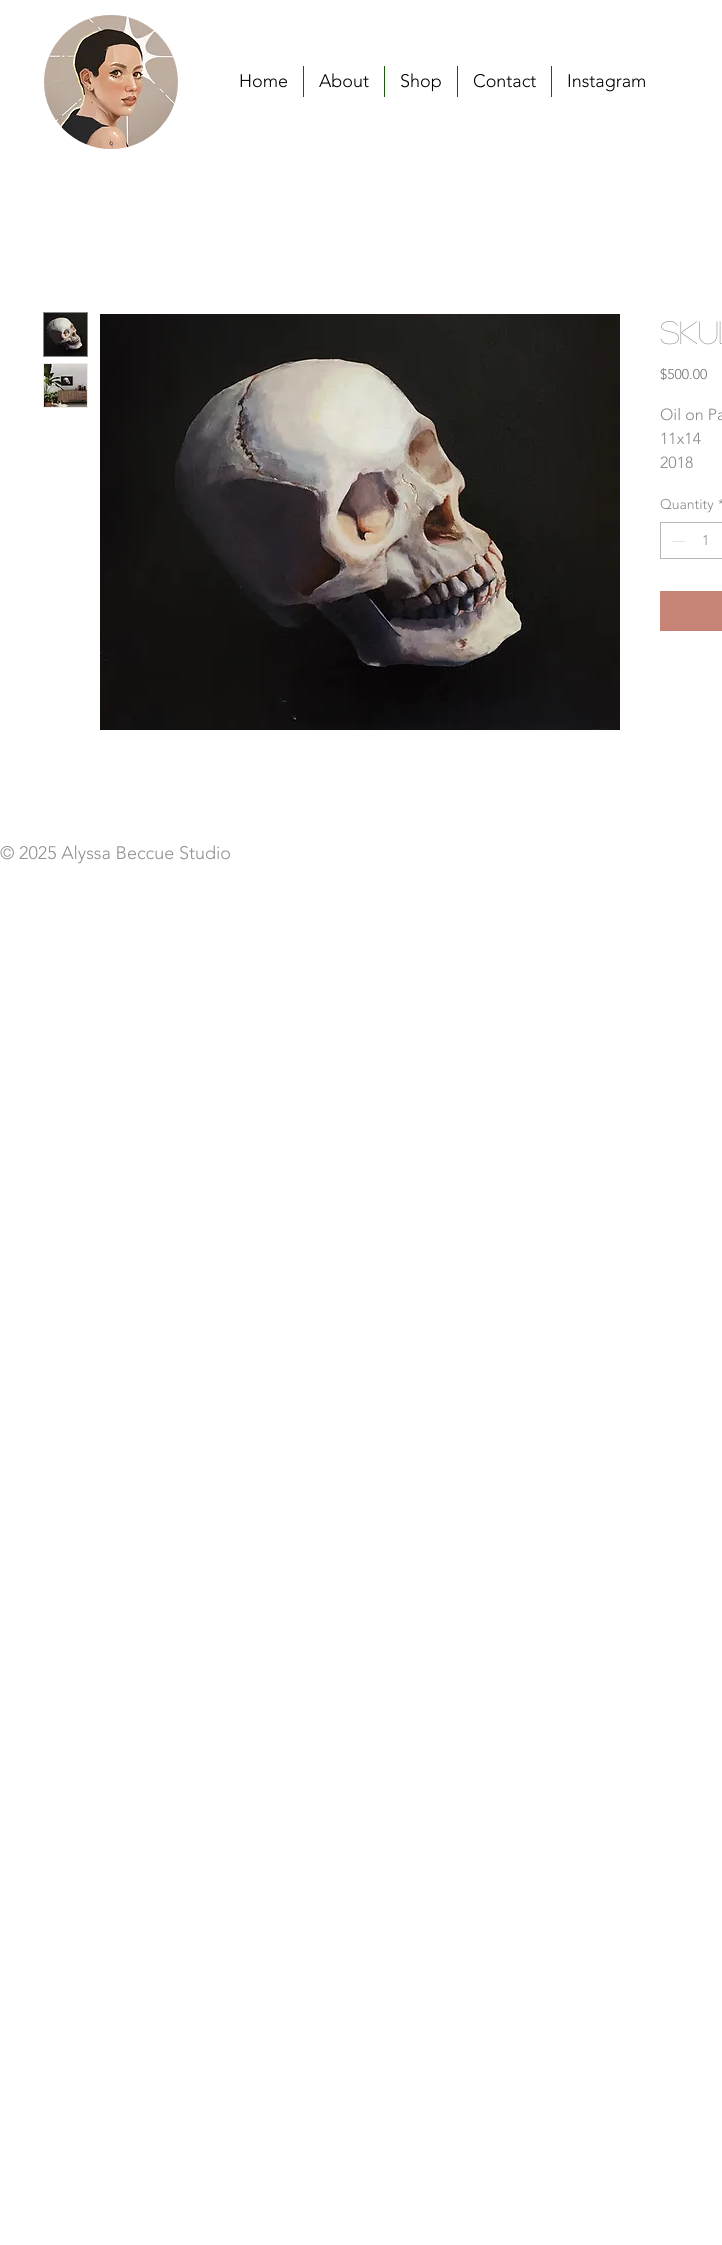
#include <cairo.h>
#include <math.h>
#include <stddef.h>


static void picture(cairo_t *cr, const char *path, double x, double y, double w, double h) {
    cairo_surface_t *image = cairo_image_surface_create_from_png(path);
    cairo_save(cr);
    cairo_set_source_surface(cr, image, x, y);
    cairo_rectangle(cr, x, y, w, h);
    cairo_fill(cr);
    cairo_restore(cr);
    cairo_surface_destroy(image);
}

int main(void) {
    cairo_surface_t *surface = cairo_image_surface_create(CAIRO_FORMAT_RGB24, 722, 2245);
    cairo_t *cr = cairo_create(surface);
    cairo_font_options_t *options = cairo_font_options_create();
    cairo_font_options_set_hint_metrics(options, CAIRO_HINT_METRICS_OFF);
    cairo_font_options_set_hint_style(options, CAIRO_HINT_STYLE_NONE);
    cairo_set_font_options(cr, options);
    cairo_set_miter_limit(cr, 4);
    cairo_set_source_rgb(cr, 1, 1, 1);
    cairo_paint(cr);
    picture(cr, "img1.png", 44, 15, 134, 134);
    cairo_select_font_face(cr, "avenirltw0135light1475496 Light", CAIRO_FONT_SLANT_NORMAL, CAIRO_FONT_WEIGHT_NORMAL);
    cairo_set_font_size(cr, 18);
    cairo_set_source_rgb(cr, 0, 0, 0);
    cairo_move_to(cr, 239, 87);
    cairo_show_text(cr, "Home");
    cairo_set_source_rgb(cr, 0.086, 0.361, 0.035);
    cairo_rectangle(cr, 303, 66, 1, 31);
    cairo_fill(cr);
    cairo_set_source_rgb(cr, 0, 0, 0);
    cairo_move_to(cr, 319, 87);
    cairo_show_text(cr, "About");
    cairo_set_source_rgb(cr, 0.086, 0.361, 0.035);
    cairo_rectangle(cr, 384, 66, 1, 31);
    cairo_fill(cr);
    cairo_set_source_rgb(cr, 0, 0, 0);
    cairo_move_to(cr, 400, 87);
    cairo_show_text(cr, "Shop");
    cairo_set_source_rgb(cr, 0.086, 0.361, 0.035);
    cairo_rectangle(cr, 457, 66, 1, 31);
    cairo_fill(cr);
    cairo_set_source_rgb(cr, 0, 0, 0);
    cairo_move_to(cr, 473, 87);
    cairo_show_text(cr, "Contact");
    cairo_set_source_rgb(cr, 0.086, 0.361, 0.035);
    cairo_rectangle(cr, 551, 66, 1, 31);
    cairo_fill(cr);
    cairo_set_source_rgb(cr, 0, 0, 0);
    cairo_move_to(cr, 567, 87);
    cairo_show_text(cr, "Instagram");
    cairo_rectangle(cr, 43.5, 312.5, 44, 44);
    cairo_set_source_rgb(cr, 0.533, 0.529, 0.522);
    cairo_set_line_width(cr, 1);
    cairo_stroke(cr);
    picture(cr, "img2.png", 44, 313, 43, 43);
    cairo_rectangle(cr, 43.5, 363.5, 44, 44);
    cairo_set_source_rgb(cr, 0.933, 0.918, 0.902);
    cairo_stroke(cr);
    picture(cr, "img3.png", 44, 364, 43, 43);
    picture(cr, "img4.png", 100, 314, 520, 416);
    cairo_select_font_face(cr, "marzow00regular", CAIRO_FONT_SLANT_NORMAL, CAIRO_FONT_WEIGHT_NORMAL);
    cairo_set_font_size(cr, 32);
    cairo_set_source_rgb(cr, 0.533, 0.529, 0.522);
    cairo_move_to(cr, 660, 344);
    cairo_show_text(cr, "Skul");
    cairo_select_font_face(cr, "avenirltw0135light1475496 Light", CAIRO_FONT_SLANT_NORMAL, CAIRO_FONT_WEIGHT_NORMAL);
    cairo_set_font_size(cr, 14);
    cairo_set_source_rgb(cr, 0.447, 0.447, 0.447);
    cairo_move_to(cr, 660, 379);
    cairo_show_text(cr, "$500.00");
    cairo_set_font_size(cr, 16);
    cairo_set_source_rgb(cr, 0.533, 0.529, 0.522);
    cairo_move_to(cr, 660, 420);
    cairo_show_text(cr, "Oil on Pa");
    cairo_move_to(cr, 660, 444);
    cairo_show_text(cr, "11x14");
    cairo_move_to(cr, 660, 468);
    cairo_show_text(cr, "2018");
    cairo_set_font_size(cr, 14);
    cairo_move_to(cr, 660, 509);
    cairo_show_text(cr, "Quantity");
    cairo_move_to(cr, 718, 509);
    cairo_show_text(cr, "*");
    cairo_rectangle(cr, 660.5, 522.5, 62, 36);
    cairo_set_source_rgb(cr, 0.722, 0.718, 0.714);
    cairo_stroke(cr);
    cairo_set_source_rgb(cr, 0.89, 0.89, 0.89);
    cairo_rectangle(cr, 672, 541, 13, 1);
    cairo_fill(cr);
    cairo_set_source_rgb(cr, 0.533, 0.529, 0.522);
    cairo_move_to(cr, 702, 545);
    cairo_show_text(cr, "1");
    cairo_set_source_rgb(cr, 0.78, 0.514, 0.459);
    cairo_rectangle(cr, 660, 591, 62, 40);
    cairo_fill(cr);
    cairo_set_font_size(cr, 18);
    cairo_set_source_rgb(cr, 0.561, 0.561, 0.561);
    cairo_move_to(cr, 0, 859);
    cairo_show_text(cr, "© 2025 Alyssa Beccue Studio");
    cairo_surface_write_to_png(surface, "page.png");
    cairo_font_options_destroy(options);
    cairo_destroy(cr);
    cairo_surface_destroy(surface);
    return 0;
}
